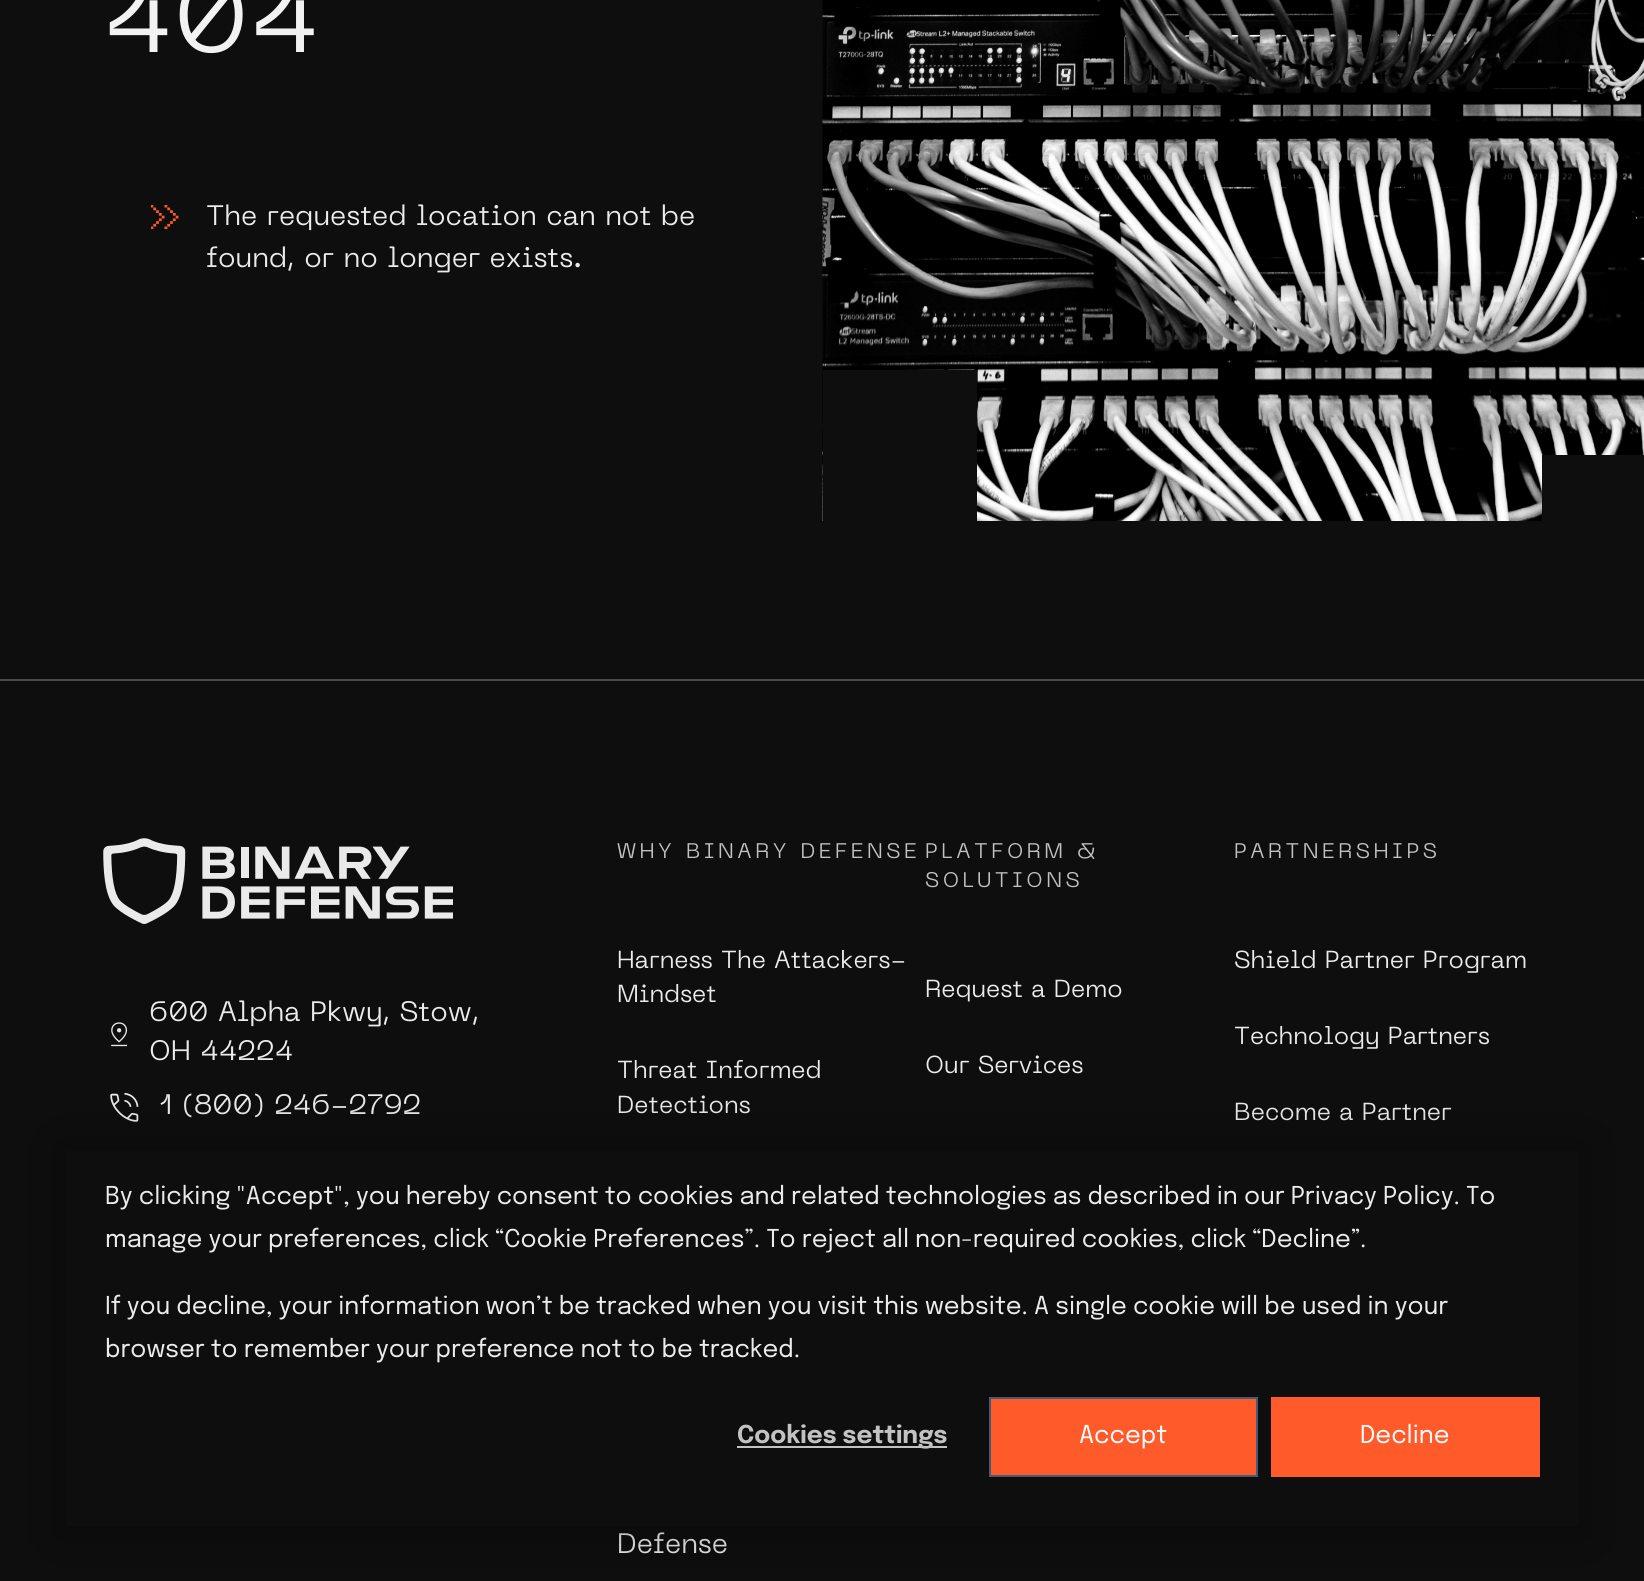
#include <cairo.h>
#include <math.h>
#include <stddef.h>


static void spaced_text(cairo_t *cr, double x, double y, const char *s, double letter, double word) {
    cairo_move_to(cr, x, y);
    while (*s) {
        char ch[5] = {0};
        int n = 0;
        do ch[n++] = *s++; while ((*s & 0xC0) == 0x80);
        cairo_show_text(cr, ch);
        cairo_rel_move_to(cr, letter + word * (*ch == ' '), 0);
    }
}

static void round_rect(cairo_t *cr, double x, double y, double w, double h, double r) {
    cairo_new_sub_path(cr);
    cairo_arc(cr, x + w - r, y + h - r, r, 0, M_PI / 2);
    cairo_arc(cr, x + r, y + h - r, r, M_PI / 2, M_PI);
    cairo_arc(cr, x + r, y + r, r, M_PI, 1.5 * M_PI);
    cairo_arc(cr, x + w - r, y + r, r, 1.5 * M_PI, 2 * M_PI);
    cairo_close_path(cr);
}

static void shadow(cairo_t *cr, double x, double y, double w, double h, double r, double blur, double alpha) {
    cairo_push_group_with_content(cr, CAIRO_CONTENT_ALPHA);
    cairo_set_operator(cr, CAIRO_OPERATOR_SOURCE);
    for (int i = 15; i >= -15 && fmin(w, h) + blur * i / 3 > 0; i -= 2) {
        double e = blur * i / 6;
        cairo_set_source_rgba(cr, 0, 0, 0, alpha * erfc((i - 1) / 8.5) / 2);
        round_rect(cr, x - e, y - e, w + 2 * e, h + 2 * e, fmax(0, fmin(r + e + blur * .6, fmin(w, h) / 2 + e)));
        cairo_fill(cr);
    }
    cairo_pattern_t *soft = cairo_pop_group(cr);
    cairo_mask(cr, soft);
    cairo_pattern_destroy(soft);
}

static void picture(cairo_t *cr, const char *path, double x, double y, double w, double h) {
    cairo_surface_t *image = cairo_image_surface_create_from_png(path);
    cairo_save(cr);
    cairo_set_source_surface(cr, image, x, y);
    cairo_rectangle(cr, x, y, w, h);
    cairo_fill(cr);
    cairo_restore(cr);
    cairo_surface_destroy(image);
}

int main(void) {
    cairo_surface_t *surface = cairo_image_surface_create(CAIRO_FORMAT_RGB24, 1644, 1581);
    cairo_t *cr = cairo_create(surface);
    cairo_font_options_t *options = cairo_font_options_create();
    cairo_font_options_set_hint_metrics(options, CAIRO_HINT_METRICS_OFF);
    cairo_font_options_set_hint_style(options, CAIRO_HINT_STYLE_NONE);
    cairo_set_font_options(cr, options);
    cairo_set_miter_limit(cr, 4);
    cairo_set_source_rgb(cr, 0.055, 0.055, 0.055);
    cairo_paint(cr);
    cairo_select_font_face(cr, "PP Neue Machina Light", CAIRO_FONT_SLANT_NORMAL, CAIRO_FONT_WEIGHT_NORMAL);
    cairo_set_font_size(cr, 106);
    cairo_set_source_rgb(cr, 0.949, 0.949, 0.949);
    cairo_move_to(cr, 103, 52);
    cairo_show_text(cr, "404");
    picture(cr, "img1.png", 151, 205, 28, 24);
    cairo_set_font_size(cr, 28);
    cairo_set_source_rgb(cr, 0.918, 0.918, 0.918);
    cairo_move_to(cr, 206, 225);
    cairo_show_text(cr, "The requested location can not be");
    cairo_move_to(cr, 206, 267);
    cairo_show_text(cr, "found, or no longer exists.");
    picture(cr, "img2.png", 822, 0, 822, 521);
    cairo_set_source_rgb(cr, 0.055, 0.055, 0.055);
    cairo_rectangle(cr, 823, 370, 154, 151);
    cairo_fill(cr);
    cairo_rectangle(cr, 1542, 455, 102, 66);
    cairo_fill(cr);
    cairo_set_source_rgb(cr, 0.282, 0.282, 0.282);
    cairo_rectangle(cr, 0, 679, 1644, 2);
    cairo_fill(cr);
    picture(cr, "img3.png", 103, 838, 350, 86);
    cairo_set_source_rgb(cr, 0.918, 0.918, 0.918);
    cairo_move_to(cr, 149, 1021);
    cairo_show_text(cr, "600 Alpha Pkwy, Stow,");
    picture(cr, "img4.png", 111, 1022, 17, 25);
    cairo_move_to(cr, 149, 1060);
    cairo_show_text(cr, "OH 44224");
    picture(cr, "img5.png", 110, 1092, 29, 30);
    cairo_move_to(cr, 159, 1114);
    cairo_show_text(cr, "1 (800) 246-2792");
    cairo_set_font_size(cr, 21);
    cairo_set_source_rgb(cr, 0.761, 0.761, 0.761);
    spaced_text(cr, 617, 858, "WHY BINARY DEFENSE", 3.5, 0);
    cairo_set_font_size(cr, 24.5);
    cairo_set_source_rgb(cr, 0.918, 0.918, 0.918);
    cairo_move_to(cr, 617, 968);
    cairo_show_text(cr, "Harness The Attackers-");
    cairo_move_to(cr, 617, 1002);
    cairo_show_text(cr, "Mindset");
    cairo_move_to(cr, 617, 1078);
    cairo_show_text(cr, "Threat Informed");
    cairo_move_to(cr, 617, 1113);
    cairo_show_text(cr, "Detections");
    cairo_set_font_size(cr, 21);
    cairo_set_source_rgb(cr, 0.761, 0.761, 0.761);
    spaced_text(cr, 925, 858, "PLATFORM &", 3.5, 0);
    spaced_text(cr, 925, 887, "SOLUTIONS", 3.5, 0);
    cairo_set_font_size(cr, 24.5);
    cairo_set_source_rgb(cr, 0.918, 0.918, 0.918);
    cairo_move_to(cr, 925, 997);
    cairo_show_text(cr, "Request a Demo");
    cairo_move_to(cr, 925, 1073);
    cairo_show_text(cr, "Our Services");
    cairo_set_font_size(cr, 21);
    cairo_set_source_rgb(cr, 0.761, 0.761, 0.761);
    spaced_text(cr, 1234, 858, "PARTNERSHIPS", 3.5, 0);
    cairo_set_font_size(cr, 24.5);
    cairo_set_source_rgb(cr, 0.918, 0.918, 0.918);
    cairo_move_to(cr, 1234, 968);
    cairo_show_text(cr, "Shield Partner Program");
    cairo_move_to(cr, 1234, 1044);
    cairo_show_text(cr, "Technology Partners");
    cairo_move_to(cr, 1234, 1120);
    cairo_show_text(cr, "Become a Partner");
    cairo_set_font_size(cr, 28);
    cairo_move_to(cr, 617, 1553);
    cairo_show_text(cr, "Defense");
    cairo_set_source_rgb(cr, 0, 0, 0);
    shadow(cr, 56, 1141, 1533, 399, 0, 24.5, 0.28);
    cairo_set_source_rgb(cr, 0.055, 0.055, 0.055);
    cairo_rectangle(cr, 66, 1151, 1513, 375);
    cairo_fill(cr);
    cairo_select_font_face(cr, "Epilogue", CAIRO_FONT_SLANT_NORMAL, CAIRO_FONT_WEIGHT_NORMAL);
    cairo_set_font_size(cr, 24.5);
    cairo_set_source_rgb(cr, 0.918, 0.918, 0.918);
    cairo_move_to(cr, 105, 1204);
    cairo_show_text(cr, "By clicking \"Accept\", you hereby consent to cookies and related technologies as described in our Privacy Policy. To");
    cairo_move_to(cr, 105, 1247);
    cairo_show_text(cr, "manage your preferences, click “Cookie Preferences”. To reject all non-required cookies, click “Decline”.");
    cairo_move_to(cr, 105, 1314);
    cairo_show_text(cr, "If you decline, your information won’t be tracked when you visit this website. A single cookie will be used in your");
    cairo_move_to(cr, 105, 1357);
    cairo_show_text(cr, "browser to remember your preference not to be tracked.");
    cairo_set_source_rgb(cr, 0.761, 0.761, 0.761);
    cairo_rectangle(cr, 737, 1446, 210, 2);
    cairo_fill(cr);
    cairo_select_font_face(cr, "Epilogue", CAIRO_FONT_SLANT_NORMAL, CAIRO_FONT_WEIGHT_BOLD);
    cairo_move_to(cr, 737, 1443);
    cairo_show_text(cr, "Cookies settings");
    cairo_set_source_rgb(cr, 1, 0.353, 0.165);
    cairo_rectangle(cr, 990, 1398, 267, 78);
    cairo_fill_preserve(cr);
    cairo_set_source_rgb(cr, 0.259, 0.357, 0.463);
    cairo_stroke(cr);
    cairo_select_font_face(cr, "Epilogue", CAIRO_FONT_SLANT_NORMAL, CAIRO_FONT_WEIGHT_NORMAL);
    cairo_set_source_rgb(cr, 1, 1, 1);
    cairo_move_to(cr, 1079, 1443);
    cairo_show_text(cr, "Accept");
    cairo_set_source_rgb(cr, 1, 0.353, 0.165);
    cairo_rectangle(cr, 1271, 1397, 269, 80);
    cairo_fill(cr);
    cairo_set_source_rgb(cr, 1, 1, 1);
    cairo_move_to(cr, 1360, 1443);
    cairo_show_text(cr, "Decline");
    cairo_surface_write_to_png(surface, "page.png");
    cairo_font_options_destroy(options);
    cairo_destroy(cr);
    cairo_surface_destroy(surface);
    return 0;
}
